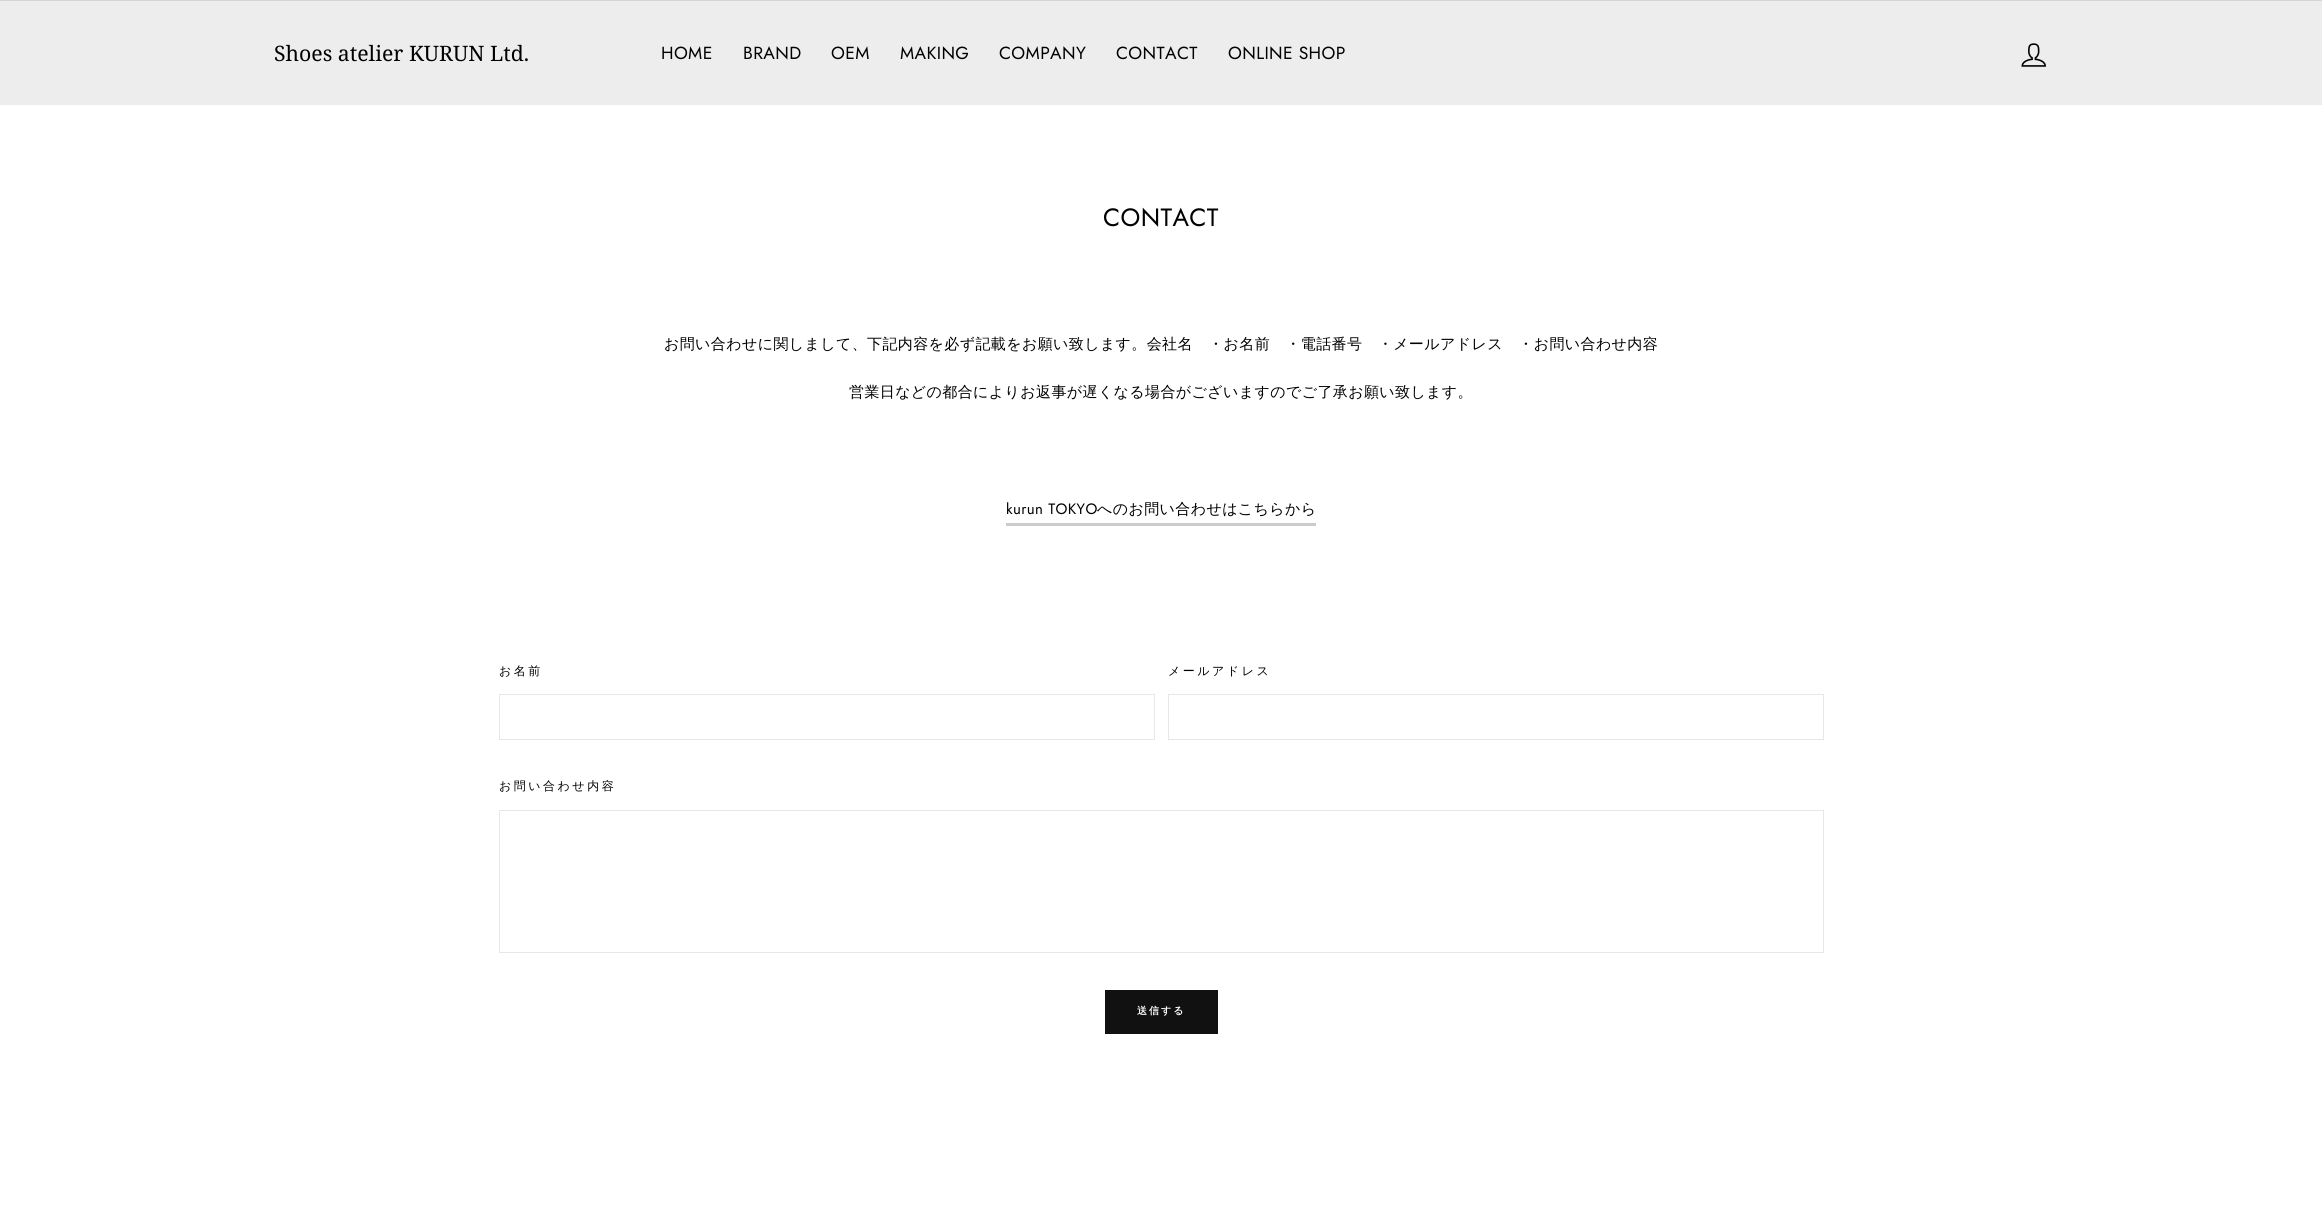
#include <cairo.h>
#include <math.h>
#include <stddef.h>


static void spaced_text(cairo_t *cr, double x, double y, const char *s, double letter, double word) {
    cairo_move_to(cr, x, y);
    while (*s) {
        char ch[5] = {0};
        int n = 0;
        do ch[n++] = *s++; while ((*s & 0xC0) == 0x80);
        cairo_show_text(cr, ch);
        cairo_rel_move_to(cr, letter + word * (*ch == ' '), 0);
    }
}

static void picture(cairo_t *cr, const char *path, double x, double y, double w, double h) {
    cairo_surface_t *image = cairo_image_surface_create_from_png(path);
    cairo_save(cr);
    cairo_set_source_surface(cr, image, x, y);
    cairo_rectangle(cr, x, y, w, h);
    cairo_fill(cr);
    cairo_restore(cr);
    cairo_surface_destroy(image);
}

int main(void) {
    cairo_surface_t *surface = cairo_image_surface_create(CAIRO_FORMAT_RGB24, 2322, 1212);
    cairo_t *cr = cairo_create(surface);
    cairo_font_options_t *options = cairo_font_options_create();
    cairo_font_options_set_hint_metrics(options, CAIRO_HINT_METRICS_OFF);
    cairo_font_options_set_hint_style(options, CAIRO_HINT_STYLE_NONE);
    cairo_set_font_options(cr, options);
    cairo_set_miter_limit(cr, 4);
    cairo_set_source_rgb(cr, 1, 1, 1);
    cairo_paint(cr);
    cairo_set_source_rgb(cr, 0.929, 0.929, 0.929);
    cairo_rectangle(cr, 0, 1, 2322, 104);
    cairo_fill(cr);
    cairo_set_source_rgb(cr, 0.835, 0.835, 0.835);
    cairo_rectangle(cr, 0, 0, 2322, 1);
    cairo_fill(cr);
    cairo_select_font_face(cr, "Noto Serif", CAIRO_FONT_SLANT_NORMAL, CAIRO_FONT_WEIGHT_NORMAL);
    cairo_set_font_size(cr, 21.25);
    cairo_set_source_rgb(cr, 0, 0, 0);
    cairo_move_to(cr, 274, 61);
    cairo_show_text(cr, "Shoes atelier KURUN Ltd.");
    cairo_select_font_face(cr, "Jost", CAIRO_FONT_SLANT_NORMAL, CAIRO_FONT_WEIGHT_NORMAL);
    cairo_set_font_size(cr, 17.5);
    spaced_text(cr, 661, 59, "HOME", 0.38, 0);
    spaced_text(cr, 743, 59, "BRAND", 0.38, 0);
    spaced_text(cr, 831, 59, "OEM", 0.38, 0);
    spaced_text(cr, 900, 59, "MAKING", 0.38, 0);
    spaced_text(cr, 999, 59, "COMPANY", 0.38, 0);
    spaced_text(cr, 1116, 59, "CONTACT", 0.38, 0);
    spaced_text(cr, 1228, 59, "ONLINE SHOP", 0.38, 0);
    picture(cr, "img1.png", 2021, 43, 25, 24);
    cairo_set_font_size(cr, 25);
    spaced_text(cr, 1103, 226, "CONTACT", 0.38, 0);
    cairo_select_font_face(cr, "WenQuanYi Zen Hei Medium", CAIRO_FONT_SLANT_NORMAL, CAIRO_FONT_WEIGHT_NORMAL);
    cairo_set_font_size(cr, 15);
    spaced_text(cr, 664, 349, "お問い合わせに関しまして、下記内容を必ず記載をお願い致します。会社名　・お名前　・電話番号　・メールアドレス　・お問い合わせ内容", 0.38, 0);
    spaced_text(cr, 849, 397, "営業日などの都合によりお返事が遅くなる場合がございますのでご了承お願い致します。", 0.38, 0);
    cairo_set_source_rgb(cr, 0.8, 0.8, 0.8);
    cairo_rectangle(cr, 1006, 523, 310, 3);
    cairo_fill(cr);
    cairo_select_font_face(cr, "Jost", CAIRO_FONT_SLANT_NORMAL, CAIRO_FONT_WEIGHT_NORMAL);
    cairo_set_source_rgb(cr, 0, 0, 0);
    spaced_text(cr, 1006, 514, "kurun TOKYO", 0.38, 0);
    cairo_select_font_face(cr, "WenQuanYi Zen Hei Medium", CAIRO_FONT_SLANT_NORMAL, CAIRO_FONT_WEIGHT_NORMAL);
    spaced_text(cr, 1097, 514, "へのお問い合わせはこちらから", 0.38, 0);
    cairo_set_font_size(cr, 12);
    spaced_text(cr, 499, 675, "お名前", 2.5, 0);
    cairo_rectangle(cr, 499.5, 694.5, 655, 45);
    cairo_set_source_rgb(cr, 0.91, 0.91, 0.882);
    cairo_set_line_width(cr, 1);
    cairo_stroke(cr);
    cairo_set_source_rgb(cr, 0, 0, 0);
    spaced_text(cr, 1168, 675, "メールアドレス", 2.5, 0);
    cairo_rectangle(cr, 1168.5, 694.5, 655, 45);
    cairo_set_source_rgb(cr, 0.91, 0.91, 0.882);
    cairo_stroke(cr);
    cairo_set_source_rgb(cr, 0, 0, 0);
    spaced_text(cr, 499, 790, "お問い合わせ内容", 2.5, 0);
    cairo_rectangle(cr, 499.5, 810.5, 1324, 142);
    cairo_set_source_rgb(cr, 0.91, 0.91, 0.882);
    cairo_stroke(cr);
    cairo_set_source_rgb(cr, 0.067, 0.067, 0.067);
    cairo_rectangle(cr, 1105, 990, 113, 44);
    cairo_fill(cr);
    cairo_select_font_face(cr, "WenQuanYi Zen Hei", CAIRO_FONT_SLANT_NORMAL, CAIRO_FONT_WEIGHT_BOLD);
    cairo_set_font_size(cr, 10);
    cairo_set_source_rgb(cr, 1, 1, 1);
    spaced_text(cr, 1137, 1014, "送信する", 2, 0);
    cairo_surface_write_to_png(surface, "page.png");
    cairo_font_options_destroy(options);
    cairo_destroy(cr);
    cairo_surface_destroy(surface);
    return 0;
}
